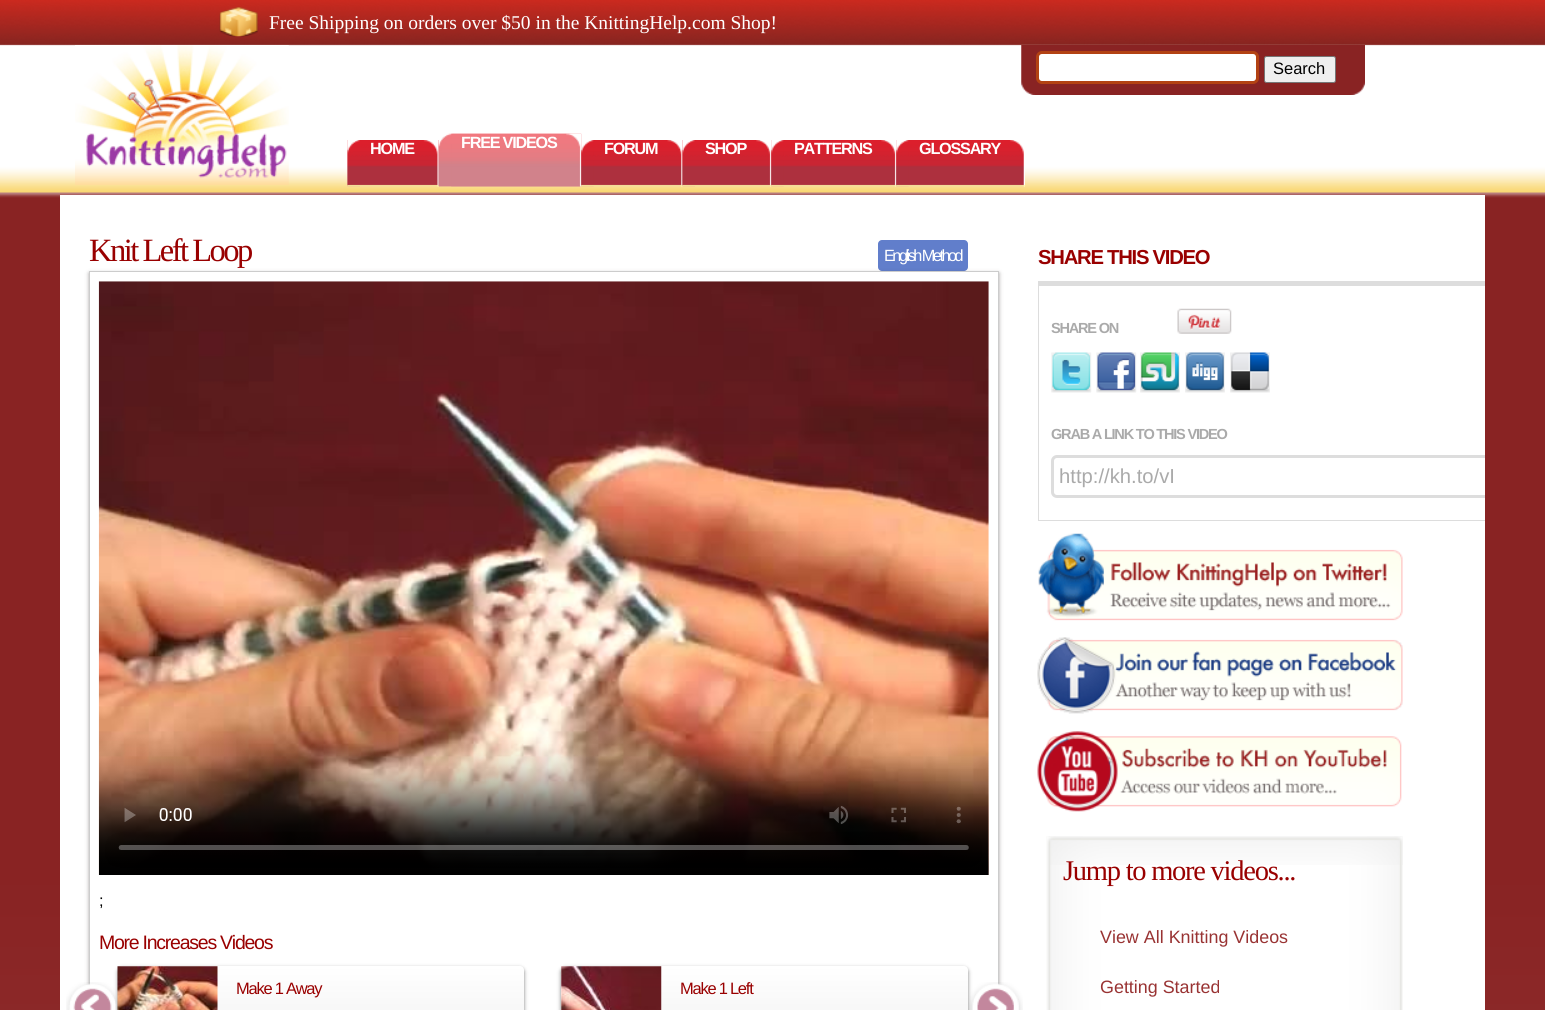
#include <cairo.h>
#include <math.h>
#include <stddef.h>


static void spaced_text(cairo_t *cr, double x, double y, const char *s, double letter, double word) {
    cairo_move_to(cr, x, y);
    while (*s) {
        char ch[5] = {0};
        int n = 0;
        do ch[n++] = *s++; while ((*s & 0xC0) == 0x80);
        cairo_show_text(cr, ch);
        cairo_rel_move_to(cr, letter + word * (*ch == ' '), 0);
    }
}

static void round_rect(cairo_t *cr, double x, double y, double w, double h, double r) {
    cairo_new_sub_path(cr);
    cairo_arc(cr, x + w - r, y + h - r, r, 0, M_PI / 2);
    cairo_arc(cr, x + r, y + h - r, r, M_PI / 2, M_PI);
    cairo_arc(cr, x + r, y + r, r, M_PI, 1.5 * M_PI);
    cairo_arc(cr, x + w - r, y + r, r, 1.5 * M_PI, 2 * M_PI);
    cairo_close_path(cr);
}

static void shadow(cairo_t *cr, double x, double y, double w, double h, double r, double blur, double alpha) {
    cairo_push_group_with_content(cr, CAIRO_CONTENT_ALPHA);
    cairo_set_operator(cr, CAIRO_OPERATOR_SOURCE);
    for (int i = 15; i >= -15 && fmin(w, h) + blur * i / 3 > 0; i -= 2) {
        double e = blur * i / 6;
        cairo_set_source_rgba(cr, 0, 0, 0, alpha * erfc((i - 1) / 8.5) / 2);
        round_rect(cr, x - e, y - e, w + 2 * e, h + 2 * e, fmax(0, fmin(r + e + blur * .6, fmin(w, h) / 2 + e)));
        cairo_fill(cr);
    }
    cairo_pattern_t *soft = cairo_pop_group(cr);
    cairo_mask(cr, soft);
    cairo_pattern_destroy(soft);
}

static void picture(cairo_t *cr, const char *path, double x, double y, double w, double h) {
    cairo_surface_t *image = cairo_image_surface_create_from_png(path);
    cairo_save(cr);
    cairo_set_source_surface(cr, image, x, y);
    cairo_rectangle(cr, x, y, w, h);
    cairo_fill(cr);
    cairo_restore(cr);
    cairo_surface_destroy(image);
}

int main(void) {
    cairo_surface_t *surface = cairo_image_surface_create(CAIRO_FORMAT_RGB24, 1545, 1010);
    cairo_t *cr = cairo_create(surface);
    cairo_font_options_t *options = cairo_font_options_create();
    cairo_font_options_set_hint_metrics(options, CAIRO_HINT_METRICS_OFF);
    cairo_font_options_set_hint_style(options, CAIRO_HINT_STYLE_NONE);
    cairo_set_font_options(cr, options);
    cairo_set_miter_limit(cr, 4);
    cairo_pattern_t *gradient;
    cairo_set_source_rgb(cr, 1, 1, 1);
    cairo_paint(cr);
    picture(cr, "img1.png", 0, 0, 1545, 1010);
    picture(cr, "img2.png", 219, 6, 40, 31);
    cairo_select_font_face(cr, "Liberation Serif", CAIRO_FONT_SLANT_NORMAL, CAIRO_FONT_WEIGHT_NORMAL);
    cairo_set_font_size(cr, 19.5);
    cairo_set_source_rgb(cr, 1, 1, 1);
    cairo_move_to(cr, 269, 29);
    cairo_show_text(cr, "Free Shipping on orders over $50 in the KnittingHelp.com Shop!");
    picture(cr, "img3.png", 75, 45, 214, 140);
    picture(cr, "img4.png", 1021, 45, 344, 50);
    round_rect(cr, 1037.5, 52.5, 220, 30, 4.5);
    cairo_fill_preserve(cr);
    cairo_set_source_rgb(cr, 0.702, 0.259, 0.078);
    cairo_set_line_width(cr, 3);
    cairo_stroke(cr);
    cairo_set_source_rgb(cr, 0.937, 0.937, 0.937);
    round_rect(cr, 1264.5, 56.5, 71, 26, 2);
    cairo_fill_preserve(cr);
    cairo_set_source_rgb(cr, 0.463, 0.463, 0.463);
    cairo_set_line_width(cr, 1);
    cairo_stroke(cr);
    cairo_select_font_face(cr, "Liberation Sans", CAIRO_FONT_SLANT_NORMAL, CAIRO_FONT_WEIGHT_NORMAL);
    cairo_set_font_size(cr, 16.5);
    cairo_set_source_rgb(cr, 0, 0, 0);
    cairo_move_to(cr, 1273, 74);
    cairo_show_text(cr, "Search");
    picture(cr, "img5.png", 347, 140, 92, 47);
    picture(cr, "img6.png", 347, 140, 92, 47);
    picture(cr, "img7.png", 360, 140, 79, 47);
    cairo_select_font_face(cr, "Liberation Sans", CAIRO_FONT_SLANT_NORMAL, CAIRO_FONT_WEIGHT_BOLD);
    cairo_set_font_size(cr, 16.25);
    cairo_set_source_rgb(cr, 1, 1, 1);
    spaced_text(cr, 370, 154, "HOME", -1.25, 0);
    picture(cr, "img8.png", 438, 140, 144, 47);
    picture(cr, "img9.png", 438, 133, 144, 54);
    picture(cr, "img10.png", 451, 133, 131, 54);
    spaced_text(cr, 461, 148, "FREE VIDEOS", -1.25, 0);
    picture(cr, "img11.png", 581, 140, 102, 47);
    picture(cr, "img12.png", 581, 140, 102, 47);
    picture(cr, "img13.png", 593, 140, 90, 47);
    spaced_text(cr, 604, 154, "FORUM", -1.25, 0);
    picture(cr, "img14.png", 682, 140, 90, 47);
    picture(cr, "img15.png", 682, 140, 90, 47);
    picture(cr, "img16.png", 695, 140, 77, 47);
    spaced_text(cr, 705, 154, "SHOP", -1.25, 0);
    picture(cr, "img17.png", 771, 140, 126, 47);
    picture(cr, "img18.png", 771, 140, 126, 47);
    picture(cr, "img19.png", 783, 140, 114, 47);
    spaced_text(cr, 794, 154, "PATTERNS", -1.25, 0);
    picture(cr, "img20.png", 896, 140, 129, 47);
    picture(cr, "img21.png", 896, 140, 129, 47);
    picture(cr, "img22.png", 908, 140, 117, 47);
    spaced_text(cr, 919, 154, "GLOSSARY", -1.25, 0);
    cairo_rectangle(cr, 60, 195, 1425, 815);
    cairo_fill(cr);
    cairo_set_source_rgb(cr, 0.38, 0.494, 0.796);
    round_rect(cr, 878, 240, 90, 31, 4);
    cairo_fill(cr);
    cairo_set_source_rgb(cr, 0.133, 0.098, 0.098);
    shadow(cr, 89, 273, 910, 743, 0, 2, 0.4);
    cairo_select_font_face(cr, "Liberation Serif", CAIRO_FONT_SLANT_NORMAL, CAIRO_FONT_WEIGHT_NORMAL);
    cairo_set_font_size(cr, 32.5);
    cairo_set_source_rgb(cr, 0.6, 0, 0);
    spaced_text(cr, 89, 261, "Knit Left Loop", -2.5, 0);
    cairo_select_font_face(cr, "Liberation Sans", CAIRO_FONT_SLANT_NORMAL, CAIRO_FONT_WEIGHT_NORMAL);
    cairo_set_font_size(cr, 16.25);
    cairo_set_source_rgb(cr, 1, 1, 1);
    spaced_text(cr, 884, 261, "English Method", -2.5, 0);
    cairo_rectangle(cr, 89.5, 271.5, 909, 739);
    cairo_fill_preserve(cr);
    cairo_set_source_rgb(cr, 0.8, 0.8, 0.8);
    cairo_stroke(cr);
    picture(cr, "img23.png", 98, 281, 891, 594);
    cairo_set_source_rgb(cr, 0, 0, 0);
    cairo_move_to(cr, 99, 906);
    cairo_show_text(cr, ";");
    cairo_set_font_size(cr, 19.5);
    cairo_set_source_rgb(cr, 0.6, 0, 0);
    spaced_text(cr, 99, 949, "More Increases Videos", -1.25, 0);
    cairo_set_source_rgb(cr, 0, 0, 0);
    shadow(cr, 118, 968, 406, 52, 4, 2, 0.5);
    gradient = cairo_pattern_create_linear(321, 966, 321, 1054);
    cairo_pattern_add_color_stop_rgba(gradient, 0, 1, 1, 1, 1);
    cairo_pattern_add_color_stop_rgba(gradient, 1, 0.941, 0.941, 0.941, 1);
    cairo_set_source(cr, gradient);
    cairo_pattern_destroy(gradient);
    round_rect(cr, 118, 966, 406, 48, 4);
    cairo_fill(cr);
    picture(cr, "img25.png", 117, 966, 101, 44);
    picture(cr, "img24.png", 66, 982, 54, 28);
    cairo_set_font_size(cr, 16.5);
    cairo_set_source_rgb(cr, 0.6, 0, 0);
    spaced_text(cr, 236, 994, "Make 1 Away", -1.25, 0);
    cairo_set_source_rgb(cr, 0, 0, 0);
    shadow(cr, 561, 968, 407, 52, 4, 2, 0.5);
    gradient = cairo_pattern_create_linear(764, 966, 764, 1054);
    cairo_pattern_add_color_stop_rgba(gradient, 0, 1, 1, 1, 1);
    cairo_pattern_add_color_stop_rgba(gradient, 1, 0.941, 0.941, 0.941, 1);
    cairo_set_source(cr, gradient);
    cairo_pattern_destroy(gradient);
    round_rect(cr, 561, 966, 407, 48, 4);
    cairo_fill(cr);
    picture(cr, "img26.png", 561, 966, 101, 44);
    cairo_set_source_rgb(cr, 0.6, 0, 0);
    spaced_text(cr, 680, 994, "Make 1 Left", -1.25, 0);
    picture(cr, "img27.png", 968, 982, 55, 28);
    cairo_select_font_face(cr, "Liberation Sans", CAIRO_FONT_SLANT_NORMAL, CAIRO_FONT_WEIGHT_BOLD);
    cairo_set_font_size(cr, 20.25);
    spaced_text(cr, 1038, 264, "SHARE THIS VIDEO", -1.25, 0);
    cairo_set_source_rgb(cr, 0.867, 0.867, 0.867);
    cairo_rectangle(cr, 1038, 281, 447, 5);
    cairo_fill(cr);
    cairo_rectangle(cr, 1038, 520, 447, 1);
    cairo_fill(cr);
    cairo_rectangle(cr, 1038, 281, 1, 240);
    cairo_fill(cr);
    cairo_set_font_size(cr, 14.6);
    cairo_set_source_rgb(cr, 0.667, 0.667, 0.667);
    spaced_text(cr, 1051, 333, "SHARE ON", -1.25, 0);
    picture(cr, "img28.png", 1177, 308, 55, 26);
    picture(cr, "img29.png", 1051, 352, 41, 41);
    picture(cr, "img30.png", 1096, 352, 41, 41);
    picture(cr, "img31.png", 1140, 352, 40, 41);
    picture(cr, "img32.png", 1185, 352, 40, 41);
    picture(cr, "img33.png", 1230, 352, 40, 41);
    spaced_text(cr, 1051, 439, "GRAB A LINK TO THIS VIDEO", -1.25, 0);
    cairo_save(cr);
    cairo_rectangle(cr, 1039, 286, 446, 234);
    cairo_clip(cr);
    round_rect(cr, 1052.5, 456.5, 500, 40, 4.5);
    cairo_set_source_rgb(cr, 0.867, 0.867, 0.867);
    cairo_set_line_width(cr, 3);
    cairo_stroke(cr);
    cairo_restore(cr);
    cairo_select_font_face(cr, "Liberation Sans", CAIRO_FONT_SLANT_NORMAL, CAIRO_FONT_WEIGHT_NORMAL);
    cairo_set_font_size(cr, 20.25);
    cairo_move_to(cr, 1059, 483);
    cairo_show_text(cr, "http://kh.to/vI");
    picture(cr, "img34.png", 1038, 533, 365, 88);
    picture(cr, "img35.png", 1037, 637, 366, 77);
    picture(cr, "img36.png", 1037, 731, 365, 81);
    picture(cr, "img37.png", 1046, 836, 357, 174);
    picture(cr, "img38.png", 1047, 836, 356, 29);
    cairo_select_font_face(cr, "Liberation Serif", CAIRO_FONT_SLANT_NORMAL, CAIRO_FONT_WEIGHT_NORMAL);
    cairo_set_font_size(cr, 28.5);
    cairo_set_source_rgb(cr, 0.6, 0, 0);
    spaced_text(cr, 1063, 880, "Jump to more videos...", -1.25, 0);
    cairo_select_font_face(cr, "Liberation Sans", CAIRO_FONT_SLANT_NORMAL, CAIRO_FONT_WEIGHT_NORMAL);
    cairo_set_font_size(cr, 17.9);
    cairo_set_source_rgb(cr, 0.6, 0.2, 0.2);
    cairo_move_to(cr, 1100, 943);
    cairo_show_text(cr, "View All Knitting Videos");
    cairo_move_to(cr, 1100, 993);
    cairo_show_text(cr, "Getting Started");
    cairo_surface_write_to_png(surface, "page.png");
    cairo_font_options_destroy(options);
    cairo_destroy(cr);
    cairo_surface_destroy(surface);
    return 0;
}
